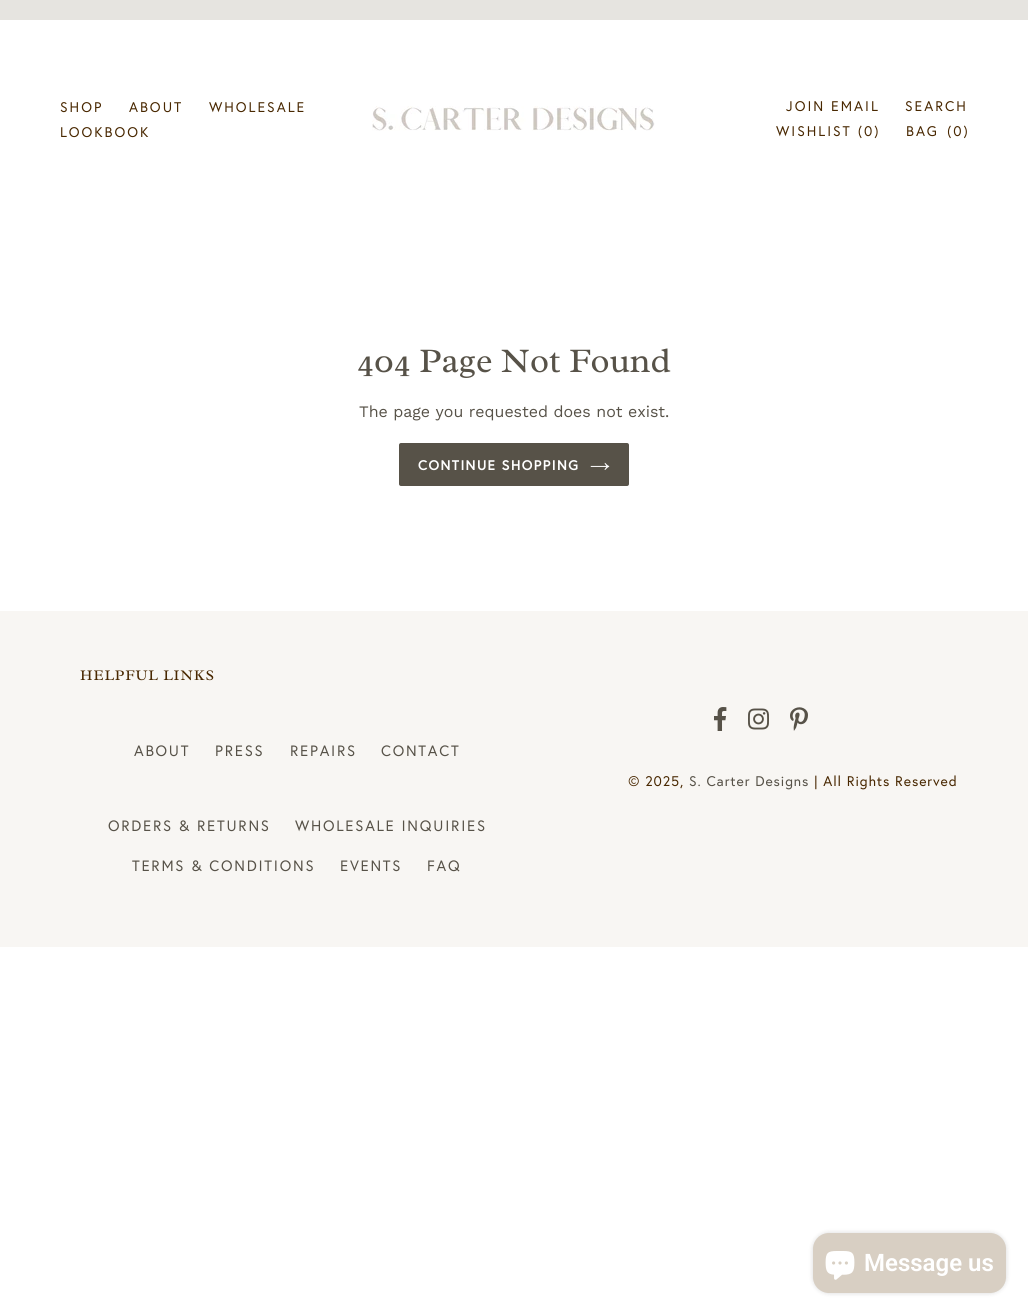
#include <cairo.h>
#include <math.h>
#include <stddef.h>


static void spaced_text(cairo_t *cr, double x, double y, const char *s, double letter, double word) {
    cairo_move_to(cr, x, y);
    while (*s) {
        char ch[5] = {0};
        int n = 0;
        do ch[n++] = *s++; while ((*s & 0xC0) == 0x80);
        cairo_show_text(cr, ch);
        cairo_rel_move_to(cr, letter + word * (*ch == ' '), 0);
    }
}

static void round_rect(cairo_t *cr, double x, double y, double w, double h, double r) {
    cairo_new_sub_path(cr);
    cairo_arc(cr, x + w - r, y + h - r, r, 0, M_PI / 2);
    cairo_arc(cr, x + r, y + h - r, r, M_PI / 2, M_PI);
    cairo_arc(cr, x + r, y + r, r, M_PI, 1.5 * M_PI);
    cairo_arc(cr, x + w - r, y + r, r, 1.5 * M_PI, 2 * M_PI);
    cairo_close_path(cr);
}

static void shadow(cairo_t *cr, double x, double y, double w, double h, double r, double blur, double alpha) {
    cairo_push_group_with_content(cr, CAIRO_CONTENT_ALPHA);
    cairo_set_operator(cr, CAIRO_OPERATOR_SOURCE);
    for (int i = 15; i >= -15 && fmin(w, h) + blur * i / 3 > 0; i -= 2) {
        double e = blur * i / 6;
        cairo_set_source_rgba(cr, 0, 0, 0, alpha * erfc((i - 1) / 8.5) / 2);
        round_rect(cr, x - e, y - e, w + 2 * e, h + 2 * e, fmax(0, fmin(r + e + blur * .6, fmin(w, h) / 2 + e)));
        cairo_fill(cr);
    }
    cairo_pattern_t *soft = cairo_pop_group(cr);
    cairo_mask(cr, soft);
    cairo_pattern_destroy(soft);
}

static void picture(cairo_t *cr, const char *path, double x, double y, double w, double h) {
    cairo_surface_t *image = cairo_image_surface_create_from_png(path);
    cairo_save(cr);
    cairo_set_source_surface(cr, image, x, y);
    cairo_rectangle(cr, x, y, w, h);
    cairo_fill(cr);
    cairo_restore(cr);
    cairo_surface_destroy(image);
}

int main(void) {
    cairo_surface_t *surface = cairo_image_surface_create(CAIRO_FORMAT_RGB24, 1028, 1314);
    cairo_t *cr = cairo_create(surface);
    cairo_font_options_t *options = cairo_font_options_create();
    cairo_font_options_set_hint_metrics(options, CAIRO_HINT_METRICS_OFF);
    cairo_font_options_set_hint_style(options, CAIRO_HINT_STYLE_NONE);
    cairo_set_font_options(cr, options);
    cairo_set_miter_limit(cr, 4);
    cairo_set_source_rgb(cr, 1, 1, 1);
    cairo_paint(cr);
    cairo_set_source_rgb(cr, 0.902, 0.894, 0.878);
    cairo_rectangle(cr, 0, 0, 1028, 20);
    cairo_fill(cr);
    cairo_select_font_face(cr, "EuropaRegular", CAIRO_FONT_SLANT_NORMAL, CAIRO_FONT_WEIGHT_NORMAL);
    cairo_set_font_size(cr, 14);
    cairo_set_source_rgb(cr, 0.286, 0.157, 0.004);
    spaced_text(cr, 60, 112, "SHOP", 2, 0);
    spaced_text(cr, 129, 112, "ABOUT", 2, 0);
    spaced_text(cr, 209, 112, "WHOLESALE", 2, 0);
    spaced_text(cr, 60, 137, "LOOKBOOK", 2, 0);
    picture(cr, "img1.png", 372, 106, 283, 25);
    spaced_text(cr, 786, 111, "JOIN EMAIL", 2, 0);
    spaced_text(cr, 905, 111, "SEARCH", 2, 0);
    spaced_text(cr, 776, 136, "WISHLIST (0)", 2, 0);
    spaced_text(cr, 906, 136, "BAG", 2, 0);
    spaced_text(cr, 947, 136, "(0)", 2, 0);
    cairo_select_font_face(cr, "Radley", CAIRO_FONT_SLANT_NORMAL, CAIRO_FONT_WEIGHT_NORMAL);
    cairo_set_font_size(cr, 35);
    cairo_set_source_rgb(cr, 0.341, 0.322, 0.282);
    cairo_move_to(cr, 357, 372);
    cairo_show_text(cr, "404 Page Not Found");
    cairo_select_font_face(cr, "Work Sans", CAIRO_FONT_SLANT_NORMAL, CAIRO_FONT_WEIGHT_NORMAL);
    cairo_set_font_size(cr, 16);
    cairo_move_to(cr, 359, 417);
    cairo_show_text(cr, "The page you requested does not exist.");
    round_rect(cr, 399, 443, 230, 43, 2);
    cairo_fill(cr);
    cairo_select_font_face(cr, "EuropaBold", CAIRO_FONT_SLANT_NORMAL, CAIRO_FONT_WEIGHT_BOLD);
    cairo_set_font_size(cr, 14);
    cairo_set_source_rgb(cr, 1, 1, 1);
    spaced_text(cr, 418, 470, "CONTINUE SHOPPING", 1.1, 0);
    picture(cr, "img2.png", 590, 462, 20, 8);
    cairo_set_source_rgb(cr, 0.969, 0.961, 0.953);
    cairo_rectangle(cr, 0, 611, 1028, 336);
    cairo_fill(cr);
    cairo_select_font_face(cr, "Radley", CAIRO_FONT_SLANT_NORMAL, CAIRO_FONT_WEIGHT_NORMAL);
    cairo_set_font_size(cr, 15);
    cairo_set_source_rgb(cr, 0.286, 0.157, 0.004);
    spaced_text(cr, 80, 680, "HELPFUL LINKS", 0.9, 0);
    cairo_select_font_face(cr, "EuropaRegular", CAIRO_FONT_SLANT_NORMAL, CAIRO_FONT_WEIGHT_NORMAL);
    cairo_set_source_rgb(cr, 0.341, 0.322, 0.282);
    spaced_text(cr, 134, 756, "ABOUT", 1.75, 0);
    spaced_text(cr, 215, 756, "PRESS", 1.75, 0);
    spaced_text(cr, 290, 756, "REPAIRS", 1.75, 0);
    spaced_text(cr, 381, 756, "CONTACT", 1.75, 0);
    spaced_text(cr, 108, 831, "ORDERS & RETURNS", 1.75, 0);
    spaced_text(cr, 295, 831, "WHOLESALE INQUIRIES", 1.75, 0);
    spaced_text(cr, 132, 871, "TERMS & CONDITIONS", 1.75, 0);
    spaced_text(cr, 340, 871, "EVENTS", 1.75, 0);
    spaced_text(cr, 427, 871, "FAQ", 1.75, 0);
    picture(cr, "img3.png", 714, 707, 13, 24);
    picture(cr, "img4.png", 748, 708, 21, 22);
    picture(cr, "img5.png", 790, 707, 18, 24);
    cairo_set_font_size(cr, 14);
    cairo_set_source_rgb(cr, 0.286, 0.157, 0.004);
    spaced_text(cr, 628, 786, "© 2025,", 0.9, 0);
    cairo_set_source_rgb(cr, 0.341, 0.322, 0.282);
    spaced_text(cr, 689, 786, "S. Carter Designs", 0.9, 0);
    cairo_set_source_rgb(cr, 0.286, 0.157, 0.004);
    spaced_text(cr, 814, 786, "| All Rights Reserved", 0.9, 0);
    cairo_set_source_rgb(cr, 0, 0, 0);
    shadow(cr, 813, 1233, 193, 60, 16, 2.5, 0.15);
    cairo_set_source_rgb(cr, 0.847, 0.812, 0.765);
    round_rect(cr, 813, 1233, 193, 60, 16);
    cairo_fill(cr);
    picture(cr, "img6.png", 825, 1251, 30, 29);
    cairo_select_font_face(cr, "Roboto SemiBold", CAIRO_FONT_SLANT_NORMAL, CAIRO_FONT_WEIGHT_NORMAL);
    cairo_set_font_size(cr, 24);
    cairo_set_source_rgb(cr, 1, 1, 1);
    cairo_move_to(cr, 864, 1271);
    cairo_show_text(cr, "Message us");
    cairo_surface_write_to_png(surface, "page.png");
    cairo_font_options_destroy(options);
    cairo_destroy(cr);
    cairo_surface_destroy(surface);
    return 0;
}
